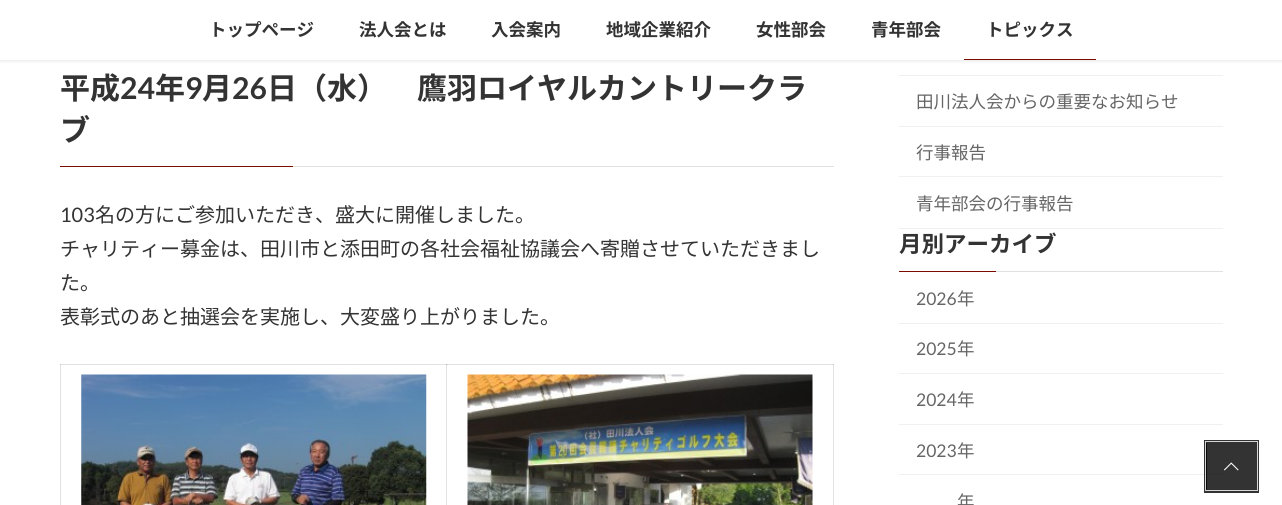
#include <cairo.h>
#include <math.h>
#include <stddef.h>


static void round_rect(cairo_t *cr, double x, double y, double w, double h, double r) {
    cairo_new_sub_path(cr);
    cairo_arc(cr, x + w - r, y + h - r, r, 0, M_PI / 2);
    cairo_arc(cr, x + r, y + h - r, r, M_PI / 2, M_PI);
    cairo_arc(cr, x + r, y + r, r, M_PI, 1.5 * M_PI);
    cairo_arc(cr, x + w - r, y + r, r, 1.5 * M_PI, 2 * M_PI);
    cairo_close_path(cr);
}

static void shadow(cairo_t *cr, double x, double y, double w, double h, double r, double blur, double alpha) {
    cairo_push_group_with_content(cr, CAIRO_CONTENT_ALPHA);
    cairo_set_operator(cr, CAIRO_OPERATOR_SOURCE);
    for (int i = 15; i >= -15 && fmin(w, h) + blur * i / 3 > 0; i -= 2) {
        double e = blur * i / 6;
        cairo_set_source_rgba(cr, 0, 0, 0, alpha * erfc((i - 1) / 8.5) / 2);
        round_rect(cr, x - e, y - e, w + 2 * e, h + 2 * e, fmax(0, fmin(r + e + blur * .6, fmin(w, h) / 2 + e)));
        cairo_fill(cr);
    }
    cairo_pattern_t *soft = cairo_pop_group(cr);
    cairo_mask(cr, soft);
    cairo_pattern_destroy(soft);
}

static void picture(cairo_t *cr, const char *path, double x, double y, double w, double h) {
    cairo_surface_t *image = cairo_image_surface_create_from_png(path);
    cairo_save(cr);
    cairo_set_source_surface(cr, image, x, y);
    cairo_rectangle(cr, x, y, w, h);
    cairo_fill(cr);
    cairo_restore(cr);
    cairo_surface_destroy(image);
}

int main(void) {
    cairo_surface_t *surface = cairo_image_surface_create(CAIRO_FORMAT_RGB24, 1282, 505);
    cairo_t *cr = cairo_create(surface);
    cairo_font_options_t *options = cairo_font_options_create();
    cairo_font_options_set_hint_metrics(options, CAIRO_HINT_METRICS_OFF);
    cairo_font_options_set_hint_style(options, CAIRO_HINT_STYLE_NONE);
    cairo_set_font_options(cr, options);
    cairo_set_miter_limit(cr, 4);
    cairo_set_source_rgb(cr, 1, 1, 1);
    cairo_paint(cr);
    cairo_set_source_rgb(cr, 0.886, 0.886, 0.886);
    cairo_rectangle(cr, 446, 364, 1, 141);
    cairo_fill(cr);
    cairo_rectangle(cr, 60, 364, 1, 141);
    cairo_fill(cr);
    cairo_rectangle(cr, 833, 364, 1, 141);
    cairo_fill(cr);
    cairo_set_source_rgb(cr, 0, 0, 0);
    shadow(cr, 0, 1, 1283, 60, 0, 2, 0.1);
    cairo_set_source_rgb(cr, 1, 1, 1);
    cairo_rectangle(cr, 0, 0, 1282, 60);
    cairo_fill(cr);
    cairo_select_font_face(cr, "Noto Sans JP", CAIRO_FONT_SLANT_NORMAL, CAIRO_FONT_WEIGHT_BOLD);
    cairo_set_font_size(cr, 17.5);
    cairo_set_source_rgb(cr, 0.2, 0.2, 0.2);
    cairo_move_to(cr, 209, 36);
    cairo_show_text(cr, "トップページ");
    cairo_move_to(cr, 359, 36);
    cairo_show_text(cr, "法人会とは");
    cairo_move_to(cr, 491, 36);
    cairo_show_text(cr, "入会案内");
    cairo_move_to(cr, 606, 36);
    cairo_show_text(cr, "地域企業紹介");
    cairo_move_to(cr, 756, 36);
    cairo_show_text(cr, "女性部会");
    cairo_move_to(cr, 871, 36);
    cairo_show_text(cr, "青年部会");
    cairo_move_to(cr, 986, 36);
    cairo_show_text(cr, "トピックス");
    cairo_set_source_rgb(cr, 0.486, 0.047, 0);
    cairo_rectangle(cr, 964, 59, 132, 1);
    cairo_fill(cr);
    cairo_set_source_rgb(cr, 0.878, 0.878, 0.878);
    cairo_rectangle(cr, 293, 166, 541, 1);
    cairo_fill(cr);
    cairo_set_font_size(cr, 30);
    cairo_set_source_rgb(cr, 0.2, 0.2, 0.2);
    cairo_move_to(cr, 60, 99);
    cairo_show_text(cr, "平成");
    cairo_select_font_face(cr, "Lato", CAIRO_FONT_SLANT_NORMAL, CAIRO_FONT_WEIGHT_BOLD);
    cairo_move_to(cr, 120, 99);
    cairo_show_text(cr, "24");
    cairo_select_font_face(cr, "Noto Sans JP", CAIRO_FONT_SLANT_NORMAL, CAIRO_FONT_WEIGHT_BOLD);
    cairo_move_to(cr, 155, 99);
    cairo_show_text(cr, "年");
    cairo_select_font_face(cr, "Lato", CAIRO_FONT_SLANT_NORMAL, CAIRO_FONT_WEIGHT_BOLD);
    cairo_move_to(cr, 185, 99);
    cairo_show_text(cr, "9");
    cairo_select_font_face(cr, "Noto Sans JP", CAIRO_FONT_SLANT_NORMAL, CAIRO_FONT_WEIGHT_BOLD);
    cairo_move_to(cr, 202, 99);
    cairo_show_text(cr, "月");
    cairo_select_font_face(cr, "Lato", CAIRO_FONT_SLANT_NORMAL, CAIRO_FONT_WEIGHT_BOLD);
    cairo_move_to(cr, 232, 99);
    cairo_show_text(cr, "26");
    cairo_select_font_face(cr, "Noto Sans JP", CAIRO_FONT_SLANT_NORMAL, CAIRO_FONT_WEIGHT_BOLD);
    cairo_move_to(cr, 267, 99);
    cairo_show_text(cr, "日（水）　鷹羽ロイヤルカントリークラ");
    cairo_move_to(cr, 60, 141);
    cairo_show_text(cr, "ブ");
    cairo_set_source_rgb(cr, 0.486, 0.047, 0);
    cairo_rectangle(cr, 60, 166, 233, 1);
    cairo_fill(cr);
    cairo_select_font_face(cr, "Lato", CAIRO_FONT_SLANT_NORMAL, CAIRO_FONT_WEIGHT_NORMAL);
    cairo_set_font_size(cr, 20);
    cairo_set_source_rgb(cr, 0.2, 0.2, 0.2);
    cairo_move_to(cr, 60, 222);
    cairo_show_text(cr, "103");
    cairo_select_font_face(cr, "Noto Sans JP", CAIRO_FONT_SLANT_NORMAL, CAIRO_FONT_WEIGHT_NORMAL);
    cairo_move_to(cr, 95, 222);
    cairo_show_text(cr, "名の方にご参加いただき、盛大に開催しました。");
    cairo_move_to(cr, 60, 256);
    cairo_show_text(cr, "チャリティー募金は、田川市と添田町の各社会福祉協議会へ寄贈させていただきまし");
    cairo_move_to(cr, 60, 290);
    cairo_show_text(cr, "た。");
    cairo_move_to(cr, 60, 324);
    cairo_show_text(cr, "表彰式のあと抽選会を実施し、大変盛り上がりました。");
    cairo_set_source_rgb(cr, 0.886, 0.886, 0.886);
    cairo_rectangle(cr, 60, 364, 774, 1);
    cairo_fill(cr);
    cairo_set_source_rgb(cr, 0.831, 0.831, 0.831);
    cairo_rectangle(cr, 446, 364, 2, 1);
    cairo_fill(cr);
    cairo_set_source_rgb(cr, 0.733, 0.733, 0.733);
    cairo_rectangle(cr, 446, 364, 1, 1);
    cairo_fill(cr);
    cairo_set_source_rgb(cr, 0.78, 0.78, 0.78);
    cairo_rectangle(cr, 60, 364, 1, 1);
    cairo_fill(cr);
    cairo_rectangle(cr, 833, 364, 1, 1);
    cairo_fill(cr);
    picture(cr, "img1.png", 81, 374, 346, 131);
    picture(cr, "img2.png", 467, 374, 346, 131);
    cairo_set_source_rgb(cr, 0.941, 0.941, 0.941);
    cairo_rectangle(cr, 899, 75, 324, 1);
    cairo_fill(cr);
    cairo_rectangle(cr, 899, 126, 324, 1);
    cairo_fill(cr);
    cairo_set_font_size(cr, 17.5);
    cairo_set_source_rgb(cr, 0.4, 0.4, 0.4);
    cairo_move_to(cr, 916, 108);
    cairo_show_text(cr, "田川法人会からの重要なお知らせ");
    cairo_set_source_rgb(cr, 0.941, 0.941, 0.941);
    cairo_rectangle(cr, 899, 176, 324, 1);
    cairo_fill(cr);
    cairo_set_source_rgb(cr, 0.4, 0.4, 0.4);
    cairo_move_to(cr, 916, 159);
    cairo_show_text(cr, "行事報告");
    cairo_set_source_rgb(cr, 0.941, 0.941, 0.941);
    cairo_rectangle(cr, 899, 228, 324, 1);
    cairo_fill(cr);
    cairo_set_source_rgb(cr, 0.4, 0.4, 0.4);
    cairo_move_to(cr, 916, 210);
    cairo_show_text(cr, "青年部会の行事報告");
    cairo_set_source_rgb(cr, 0.878, 0.878, 0.878);
    cairo_rectangle(cr, 996, 271, 227, 1);
    cairo_fill(cr);
    cairo_select_font_face(cr, "Noto Sans JP", CAIRO_FONT_SLANT_NORMAL, CAIRO_FONT_WEIGHT_BOLD);
    cairo_set_font_size(cr, 22.5);
    cairo_set_source_rgb(cr, 0.2, 0.2, 0.2);
    cairo_move_to(cr, 899, 252);
    cairo_show_text(cr, "月別アーカイブ");
    cairo_set_source_rgb(cr, 0.486, 0.047, 0);
    cairo_rectangle(cr, 899, 271, 97, 1);
    cairo_fill(cr);
    cairo_set_source_rgb(cr, 0.941, 0.941, 0.941);
    cairo_rectangle(cr, 899, 323, 324, 1);
    cairo_fill(cr);
    cairo_select_font_face(cr, "Lato", CAIRO_FONT_SLANT_NORMAL, CAIRO_FONT_WEIGHT_NORMAL);
    cairo_set_font_size(cr, 17.5);
    cairo_set_source_rgb(cr, 0.4, 0.4, 0.4);
    cairo_move_to(cr, 916, 305);
    cairo_show_text(cr, "2026");
    cairo_select_font_face(cr, "Noto Sans JP", CAIRO_FONT_SLANT_NORMAL, CAIRO_FONT_WEIGHT_NORMAL);
    cairo_move_to(cr, 957, 305);
    cairo_show_text(cr, "年");
    cairo_set_source_rgb(cr, 0.941, 0.941, 0.941);
    cairo_rectangle(cr, 899, 373, 324, 1);
    cairo_fill(cr);
    cairo_select_font_face(cr, "Lato", CAIRO_FONT_SLANT_NORMAL, CAIRO_FONT_WEIGHT_NORMAL);
    cairo_set_source_rgb(cr, 0.4, 0.4, 0.4);
    cairo_move_to(cr, 916, 355);
    cairo_show_text(cr, "2025");
    cairo_select_font_face(cr, "Noto Sans JP", CAIRO_FONT_SLANT_NORMAL, CAIRO_FONT_WEIGHT_NORMAL);
    cairo_move_to(cr, 957, 355);
    cairo_show_text(cr, "年");
    cairo_set_source_rgb(cr, 0.941, 0.941, 0.941);
    cairo_rectangle(cr, 899, 424, 324, 1);
    cairo_fill(cr);
    cairo_select_font_face(cr, "Lato", CAIRO_FONT_SLANT_NORMAL, CAIRO_FONT_WEIGHT_NORMAL);
    cairo_set_source_rgb(cr, 0.4, 0.4, 0.4);
    cairo_move_to(cr, 916, 406);
    cairo_show_text(cr, "2024");
    cairo_select_font_face(cr, "Noto Sans JP", CAIRO_FONT_SLANT_NORMAL, CAIRO_FONT_WEIGHT_NORMAL);
    cairo_move_to(cr, 957, 406);
    cairo_show_text(cr, "年");
    cairo_set_source_rgb(cr, 0.941, 0.941, 0.941);
    cairo_rectangle(cr, 899, 474, 324, 1);
    cairo_fill(cr);
    cairo_select_font_face(cr, "Lato", CAIRO_FONT_SLANT_NORMAL, CAIRO_FONT_WEIGHT_NORMAL);
    cairo_set_source_rgb(cr, 0.4, 0.4, 0.4);
    cairo_move_to(cr, 916, 457);
    cairo_show_text(cr, "2023");
    cairo_select_font_face(cr, "Noto Sans JP", CAIRO_FONT_SLANT_NORMAL, CAIRO_FONT_WEIGHT_NORMAL);
    cairo_move_to(cr, 957, 457);
    cairo_show_text(cr, "年");
    cairo_move_to(cr, 957, 508);
    cairo_show_text(cr, "年");
    cairo_rectangle(cr, 1205.5, 441.5, 52, 50);
    cairo_set_source_rgba(cr, 0, 0, 0, 0.8);
    cairo_set_line_width(cr, 3);
    cairo_stroke(cr);
    cairo_rectangle(cr, 1205.5, 441.5, 52, 49);
    cairo_set_source_rgba(cr, 1, 1, 1, 0.8);
    cairo_set_line_width(cr, 1);
    cairo_stroke(cr);
    cairo_set_source_rgba(cr, 0, 0, 0, 0.8);
    cairo_rectangle(cr, 1206, 443, 50, 47);
    cairo_fill(cr);
    picture(cr, "img3.png", 1224, 462, 15, 9);
    cairo_surface_write_to_png(surface, "page.png");
    cairo_font_options_destroy(options);
    cairo_destroy(cr);
    cairo_surface_destroy(surface);
    return 0;
}
